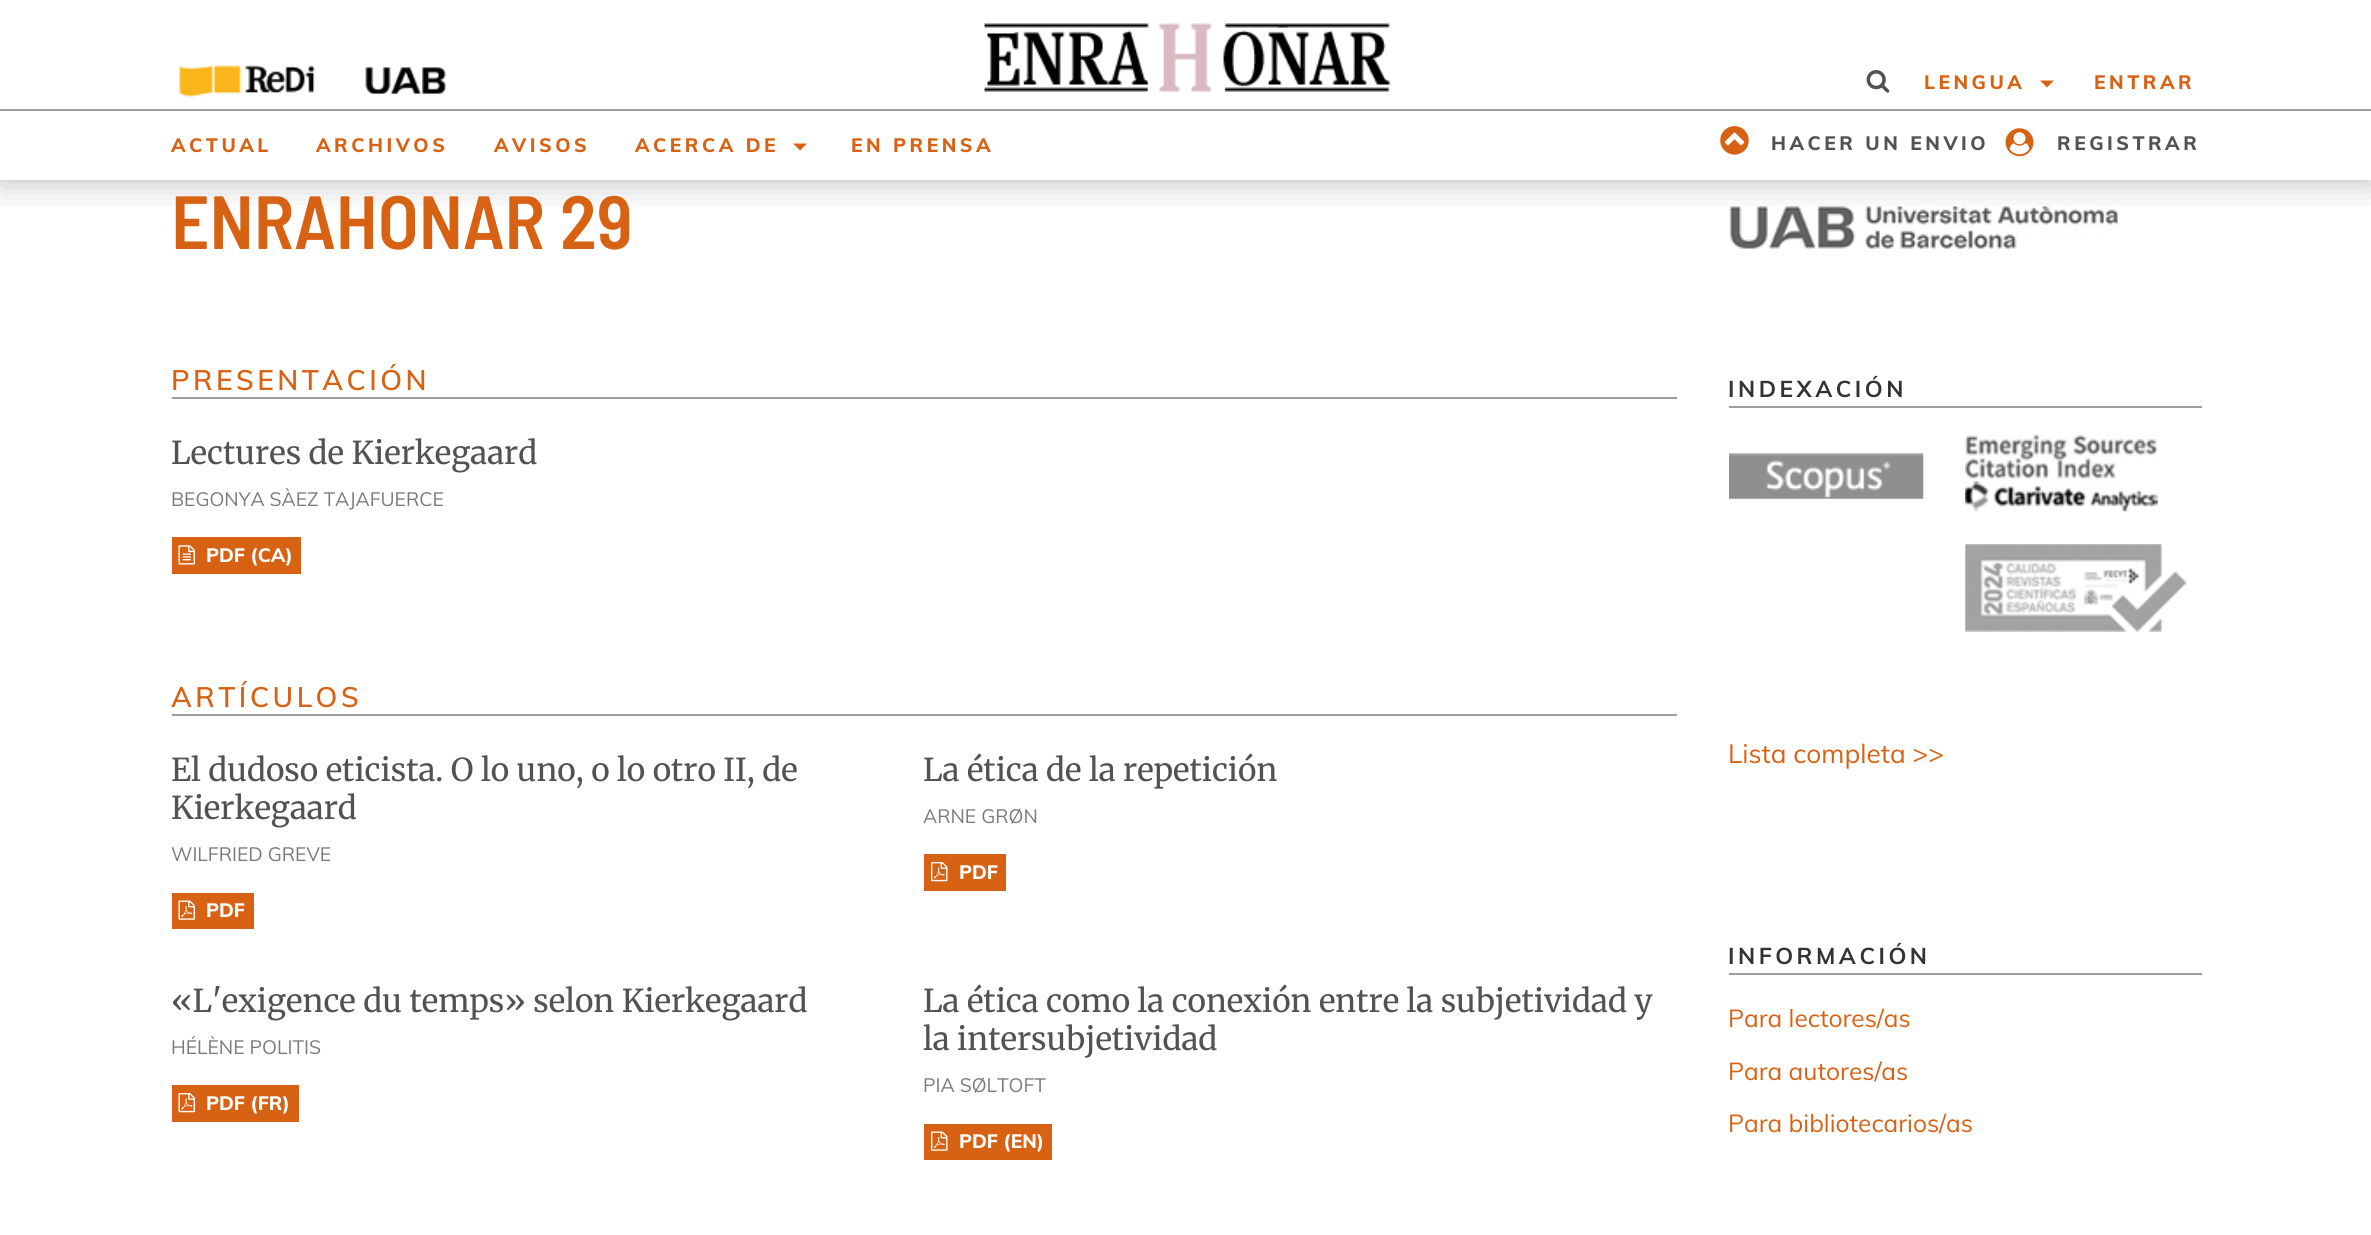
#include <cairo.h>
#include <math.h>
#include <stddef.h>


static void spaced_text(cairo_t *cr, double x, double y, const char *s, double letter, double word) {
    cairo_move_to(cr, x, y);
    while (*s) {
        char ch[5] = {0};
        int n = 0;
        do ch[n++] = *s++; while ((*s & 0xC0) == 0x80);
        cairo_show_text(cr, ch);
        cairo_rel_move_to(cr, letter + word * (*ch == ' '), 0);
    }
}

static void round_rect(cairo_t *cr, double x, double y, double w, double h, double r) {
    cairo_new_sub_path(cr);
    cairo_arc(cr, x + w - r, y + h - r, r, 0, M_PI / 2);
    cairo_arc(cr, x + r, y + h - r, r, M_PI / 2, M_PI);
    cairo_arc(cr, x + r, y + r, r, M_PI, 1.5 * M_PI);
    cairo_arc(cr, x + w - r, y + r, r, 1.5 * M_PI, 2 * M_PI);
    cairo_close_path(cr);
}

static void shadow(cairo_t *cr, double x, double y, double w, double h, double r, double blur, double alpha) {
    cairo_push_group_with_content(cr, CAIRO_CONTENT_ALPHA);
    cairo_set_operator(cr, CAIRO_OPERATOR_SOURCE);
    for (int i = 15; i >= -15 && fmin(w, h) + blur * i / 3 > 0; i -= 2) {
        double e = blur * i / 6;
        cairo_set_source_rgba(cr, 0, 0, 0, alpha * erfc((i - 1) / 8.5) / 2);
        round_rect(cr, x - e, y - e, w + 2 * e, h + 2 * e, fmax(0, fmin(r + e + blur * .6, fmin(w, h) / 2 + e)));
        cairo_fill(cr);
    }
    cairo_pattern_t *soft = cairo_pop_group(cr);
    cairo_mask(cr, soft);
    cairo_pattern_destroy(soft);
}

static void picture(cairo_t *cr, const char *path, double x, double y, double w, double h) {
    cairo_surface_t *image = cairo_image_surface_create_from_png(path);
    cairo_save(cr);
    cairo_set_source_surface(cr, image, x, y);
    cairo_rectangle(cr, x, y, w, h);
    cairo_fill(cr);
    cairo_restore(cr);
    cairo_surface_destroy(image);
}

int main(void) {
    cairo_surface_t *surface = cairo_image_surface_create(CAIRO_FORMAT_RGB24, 2371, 1235);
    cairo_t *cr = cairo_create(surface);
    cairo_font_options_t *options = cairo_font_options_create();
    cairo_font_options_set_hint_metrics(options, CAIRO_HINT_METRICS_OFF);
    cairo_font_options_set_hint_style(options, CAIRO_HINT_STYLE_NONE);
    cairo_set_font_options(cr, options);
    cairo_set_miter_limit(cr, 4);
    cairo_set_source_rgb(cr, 1, 1, 1);
    cairo_paint(cr);
    picture(cr, "img12.png", 1729, 206, 389, 43);
    cairo_save(cr);
    cairo_rectangle(cr, 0, 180, 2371, 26);
    cairo_clip(cr);
    cairo_set_source_rgb(cr, 0, 0, 0);
    shadow(cr, 0, 0, 2371, 180, 0, 17.5, 0.3);
    cairo_restore(cr);
    picture(cr, "img1.png", 179, 65, 136, 32);
    picture(cr, "img2.png", 365, 67, 81, 27);
    picture(cr, "img3.png", 984, 23, 406, 69);
    picture(cr, "img4.png", 1866, 70, 24, 23);
    cairo_select_font_face(cr, "Muli ExtraBold", CAIRO_FONT_SLANT_NORMAL, CAIRO_FONT_WEIGHT_NORMAL);
    cairo_set_font_size(cr, 19.25);
    cairo_set_source_rgb(cr, 0.847, 0.384, 0.075);
    spaced_text(cr, 1924, 89, "LENGUA", 3.5, 0);
    cairo_new_path(cr);
    cairo_move_to(cr, 2040, 80.5);
    cairo_line_to(cr, 2054, 80.5);
    cairo_line_to(cr, 2047, 87.5);
    cairo_close_path(cr);
    cairo_fill(cr);
    spaced_text(cr, 2094, 89, "ENTRAR", 3.5, 0);
    cairo_set_source_rgb(cr, 0.612, 0.62, 0.624);
    cairo_rectangle(cr, 0, 109, 2371, 2);
    cairo_fill(cr);
    cairo_set_source_rgb(cr, 0.847, 0.384, 0.075);
    spaced_text(cr, 171, 152, "ACTUAL", 3.5, 0);
    spaced_text(cr, 316, 152, "ARCHIVOS", 3.5, 0);
    spaced_text(cr, 494, 152, "AVISOS", 3.5, 0);
    spaced_text(cr, 635, 152, "ACERCA DE", 3.5, 0);
    cairo_new_path(cr);
    cairo_move_to(cr, 793, 143.5);
    cairo_line_to(cr, 807, 143.5);
    cairo_line_to(cr, 800, 150.5);
    cairo_close_path(cr);
    cairo_fill(cr);
    spaced_text(cr, 851, 152, "EN PRENSA", 3.5, 0);
    picture(cr, "img5.png", 1720, 126, 29, 29);
    cairo_set_source_rgb(cr, 0.322, 0.322, 0.322);
    spaced_text(cr, 1771, 150, "HACER UN ENVIO", 3.5, 0);
    picture(cr, "img6.png", 2005, 128, 29, 29);
    spaced_text(cr, 2057, 150, "REGISTRAR", 3.5, 0);
    cairo_select_font_face(cr, "Barlow Semi Condensed SemiBold", CAIRO_FONT_SLANT_NORMAL, CAIRO_FONT_WEIGHT_NORMAL);
    cairo_set_font_size(cr, 75.25);
    cairo_set_source_rgb(cr, 0.847, 0.384, 0.075);
    cairo_move_to(cr, 171, 249);
    cairo_show_text(cr, "ENRAHONAR 29");
    cairo_set_source_rgb(cr, 0.612, 0.62, 0.624);
    cairo_rectangle(cr, 172, 397, 1505, 2);
    cairo_fill(cr);
    cairo_select_font_face(cr, "Muli SemiBold", CAIRO_FONT_SLANT_NORMAL, CAIRO_FONT_WEIGHT_NORMAL);
    cairo_set_font_size(cr, 28);
    cairo_set_source_rgb(cr, 0.847, 0.384, 0.075);
    spaced_text(cr, 171, 390, "PRESENTACIÓN", 3.5, 0);
    cairo_select_font_face(cr, "Merriweather", CAIRO_FONT_SLANT_NORMAL, CAIRO_FONT_WEIGHT_NORMAL);
    cairo_set_font_size(cr, 31.5);
    cairo_set_source_rgb(cr, 0.322, 0.322, 0.322);
    cairo_move_to(cr, 171, 464);
    cairo_show_text(cr, "Lectures de Kierkegaard");
    cairo_select_font_face(cr, "Muli", CAIRO_FONT_SLANT_NORMAL, CAIRO_FONT_WEIGHT_NORMAL);
    cairo_set_font_size(cr, 19.25);
    cairo_set_source_rgb(cr, 0.482, 0.475, 0.475);
    cairo_move_to(cr, 171, 506);
    cairo_show_text(cr, "BEGONYA SÀEZ TAJAFUERCE");
    cairo_set_source_rgb(cr, 0.847, 0.384, 0.075);
    cairo_rectangle(cr, 172, 537, 129, 37);
    cairo_fill(cr);
    picture(cr, "img7.png", 178, 545, 17, 20);
    cairo_select_font_face(cr, "Muli ExtraBold", CAIRO_FONT_SLANT_NORMAL, CAIRO_FONT_WEIGHT_NORMAL);
    cairo_set_source_rgb(cr, 1, 1, 1);
    cairo_move_to(cr, 206, 562);
    cairo_show_text(cr, "PDF (CA)");
    cairo_set_source_rgb(cr, 0.612, 0.62, 0.624);
    cairo_rectangle(cr, 172, 714, 1505, 2);
    cairo_fill(cr);
    cairo_select_font_face(cr, "Muli SemiBold", CAIRO_FONT_SLANT_NORMAL, CAIRO_FONT_WEIGHT_NORMAL);
    cairo_set_font_size(cr, 28);
    cairo_set_source_rgb(cr, 0.847, 0.384, 0.075);
    spaced_text(cr, 171, 707, "ARTÍCULOS", 3.5, 0);
    cairo_select_font_face(cr, "Merriweather", CAIRO_FONT_SLANT_NORMAL, CAIRO_FONT_WEIGHT_NORMAL);
    cairo_set_font_size(cr, 31.5);
    cairo_set_source_rgb(cr, 0.322, 0.322, 0.322);
    cairo_move_to(cr, 171, 781);
    cairo_show_text(cr, "El dudoso eticista. O lo uno, o lo otro II, de");
    cairo_move_to(cr, 171, 819);
    cairo_show_text(cr, "Kierkegaard");
    cairo_select_font_face(cr, "Muli", CAIRO_FONT_SLANT_NORMAL, CAIRO_FONT_WEIGHT_NORMAL);
    cairo_set_font_size(cr, 19.25);
    cairo_set_source_rgb(cr, 0.482, 0.475, 0.475);
    cairo_move_to(cr, 171, 861);
    cairo_show_text(cr, "WILFRIED GREVE");
    cairo_set_source_rgb(cr, 0.847, 0.384, 0.075);
    cairo_rectangle(cr, 172, 893, 82, 36);
    cairo_fill(cr);
    picture(cr, "img8.png", 178, 900, 17, 20);
    cairo_select_font_face(cr, "Muli ExtraBold", CAIRO_FONT_SLANT_NORMAL, CAIRO_FONT_WEIGHT_NORMAL);
    cairo_set_source_rgb(cr, 1, 1, 1);
    cairo_move_to(cr, 206, 917);
    cairo_show_text(cr, "PDF");
    cairo_select_font_face(cr, "Merriweather", CAIRO_FONT_SLANT_NORMAL, CAIRO_FONT_WEIGHT_NORMAL);
    cairo_set_font_size(cr, 31.5);
    cairo_set_source_rgb(cr, 0.322, 0.322, 0.322);
    cairo_move_to(cr, 923, 781);
    cairo_show_text(cr, "La ética de la repetición");
    cairo_select_font_face(cr, "Muli", CAIRO_FONT_SLANT_NORMAL, CAIRO_FONT_WEIGHT_NORMAL);
    cairo_set_font_size(cr, 19.25);
    cairo_set_source_rgb(cr, 0.482, 0.475, 0.475);
    cairo_move_to(cr, 923, 823);
    cairo_show_text(cr, "ARNE GRØN");
    cairo_set_source_rgb(cr, 0.847, 0.384, 0.075);
    cairo_rectangle(cr, 924, 854, 82, 37);
    cairo_fill(cr);
    picture(cr, "img9.png", 931, 862, 17, 20);
    cairo_select_font_face(cr, "Muli ExtraBold", CAIRO_FONT_SLANT_NORMAL, CAIRO_FONT_WEIGHT_NORMAL);
    cairo_set_source_rgb(cr, 1, 1, 1);
    cairo_move_to(cr, 959, 879);
    cairo_show_text(cr, "PDF");
    cairo_select_font_face(cr, "Merriweather", CAIRO_FONT_SLANT_NORMAL, CAIRO_FONT_WEIGHT_NORMAL);
    cairo_set_font_size(cr, 31.5);
    cairo_set_source_rgb(cr, 0.322, 0.322, 0.322);
    cairo_move_to(cr, 171, 1012);
    cairo_show_text(cr, "«L'exigence du temps» selon Kierkegaard");
    cairo_select_font_face(cr, "Muli", CAIRO_FONT_SLANT_NORMAL, CAIRO_FONT_WEIGHT_NORMAL);
    cairo_set_font_size(cr, 19.25);
    cairo_set_source_rgb(cr, 0.482, 0.475, 0.475);
    cairo_move_to(cr, 171, 1054);
    cairo_show_text(cr, "HÉLÈNE POLITIS");
    cairo_set_source_rgb(cr, 0.847, 0.384, 0.075);
    cairo_rectangle(cr, 172, 1085, 127, 37);
    cairo_fill(cr);
    picture(cr, "img10.png", 178, 1093, 17, 20);
    cairo_select_font_face(cr, "Muli ExtraBold", CAIRO_FONT_SLANT_NORMAL, CAIRO_FONT_WEIGHT_NORMAL);
    cairo_set_source_rgb(cr, 1, 1, 1);
    cairo_move_to(cr, 206, 1110);
    cairo_show_text(cr, "PDF (FR)");
    cairo_select_font_face(cr, "Merriweather", CAIRO_FONT_SLANT_NORMAL, CAIRO_FONT_WEIGHT_NORMAL);
    cairo_set_font_size(cr, 31.5);
    cairo_set_source_rgb(cr, 0.322, 0.322, 0.322);
    cairo_move_to(cr, 923, 1012);
    cairo_show_text(cr, "La ética como la conexión entre la subjetividad y");
    cairo_move_to(cr, 923, 1050);
    cairo_show_text(cr, "la intersubjetividad");
    cairo_select_font_face(cr, "Muli", CAIRO_FONT_SLANT_NORMAL, CAIRO_FONT_WEIGHT_NORMAL);
    cairo_set_font_size(cr, 19.25);
    cairo_set_source_rgb(cr, 0.482, 0.475, 0.475);
    cairo_move_to(cr, 923, 1092);
    cairo_show_text(cr, "PIA SØLTOFT");
    cairo_set_source_rgb(cr, 0.847, 0.384, 0.075);
    cairo_rectangle(cr, 924, 1124, 128, 36);
    cairo_fill(cr);
    picture(cr, "img11.png", 931, 1131, 17, 20);
    cairo_select_font_face(cr, "Muli ExtraBold", CAIRO_FONT_SLANT_NORMAL, CAIRO_FONT_WEIGHT_NORMAL);
    cairo_set_source_rgb(cr, 1, 1, 1);
    cairo_move_to(cr, 959, 1148);
    cairo_show_text(cr, "PDF (EN)");
    cairo_set_source_rgb(cr, 0.612, 0.62, 0.624);
    cairo_rectangle(cr, 1729, 406, 473, 2);
    cairo_fill(cr);
    cairo_select_font_face(cr, "Muli", CAIRO_FONT_SLANT_NORMAL, CAIRO_FONT_WEIGHT_BOLD);
    cairo_set_font_size(cr, 22.75);
    cairo_set_source_rgb(cr, 0.2, 0.2, 0.2);
    spaced_text(cr, 1728, 397, "INDEXACIÓN", 3.5, 0);
    picture(cr, "img13.png", 1729, 453, 195, 46);
    picture(cr, "img14.png", 1965, 434, 193, 78);
    picture(cr, "img15.png", 1965, 544, 222, 88);
    cairo_select_font_face(cr, "Muli", CAIRO_FONT_SLANT_NORMAL, CAIRO_FONT_WEIGHT_NORMAL);
    cairo_set_font_size(cr, 26.25);
    cairo_set_source_rgb(cr, 0.847, 0.384, 0.075);
    cairo_move_to(cr, 1728, 763);
    cairo_show_text(cr, "Lista completa >>");
    cairo_set_source_rgb(cr, 0.612, 0.62, 0.624);
    cairo_rectangle(cr, 1729, 973, 473, 2);
    cairo_fill(cr);
    cairo_select_font_face(cr, "Muli", CAIRO_FONT_SLANT_NORMAL, CAIRO_FONT_WEIGHT_BOLD);
    cairo_set_font_size(cr, 22.75);
    cairo_set_source_rgb(cr, 0.2, 0.2, 0.2);
    spaced_text(cr, 1728, 964, "INFORMACIÓN", 3.5, 0);
    cairo_select_font_face(cr, "Muli", CAIRO_FONT_SLANT_NORMAL, CAIRO_FONT_WEIGHT_NORMAL);
    cairo_set_font_size(cr, 24.5);
    cairo_set_source_rgb(cr, 0.847, 0.384, 0.075);
    cairo_move_to(cr, 1728, 1027);
    cairo_show_text(cr, "Para lectores/as");
    cairo_move_to(cr, 1728, 1080);
    cairo_show_text(cr, "Para autores/as");
    cairo_move_to(cr, 1728, 1132);
    cairo_show_text(cr, "Para bibliotecarios/as");
    cairo_surface_write_to_png(surface, "page.png");
    cairo_font_options_destroy(options);
    cairo_destroy(cr);
    cairo_surface_destroy(surface);
    return 0;
}
